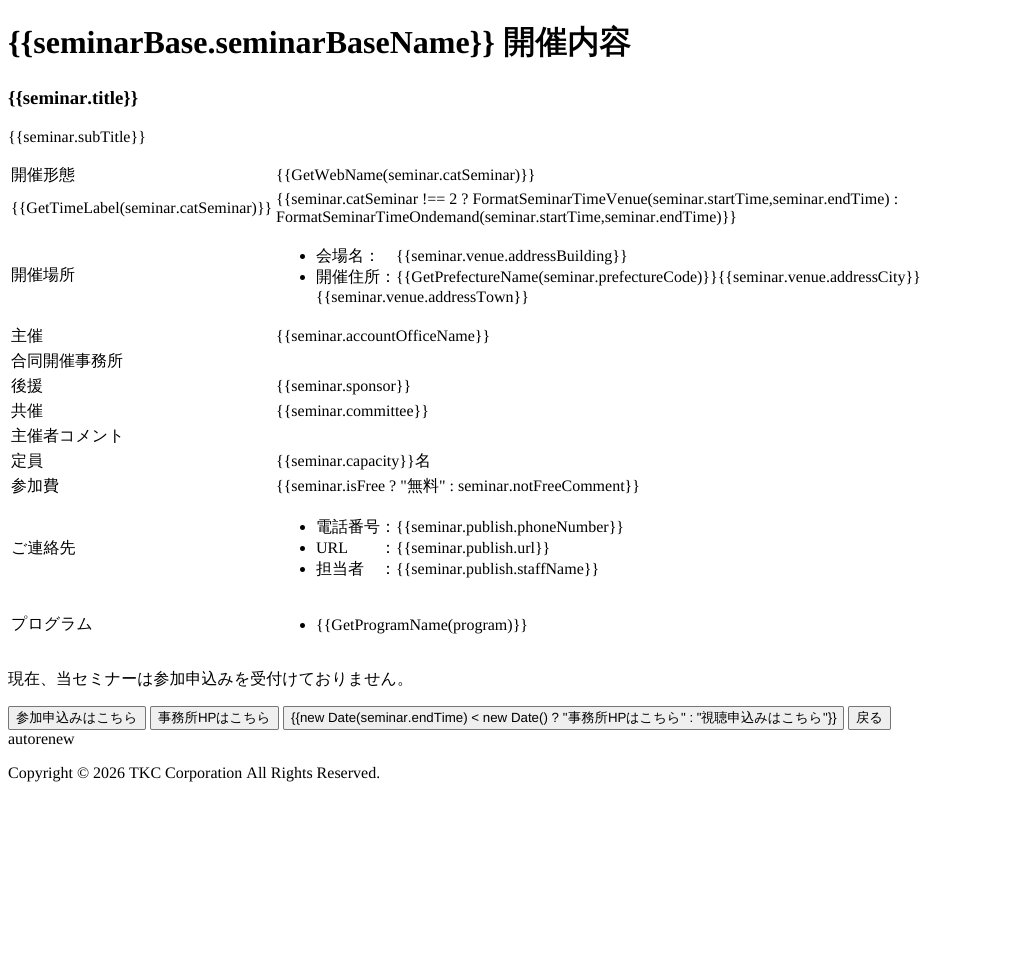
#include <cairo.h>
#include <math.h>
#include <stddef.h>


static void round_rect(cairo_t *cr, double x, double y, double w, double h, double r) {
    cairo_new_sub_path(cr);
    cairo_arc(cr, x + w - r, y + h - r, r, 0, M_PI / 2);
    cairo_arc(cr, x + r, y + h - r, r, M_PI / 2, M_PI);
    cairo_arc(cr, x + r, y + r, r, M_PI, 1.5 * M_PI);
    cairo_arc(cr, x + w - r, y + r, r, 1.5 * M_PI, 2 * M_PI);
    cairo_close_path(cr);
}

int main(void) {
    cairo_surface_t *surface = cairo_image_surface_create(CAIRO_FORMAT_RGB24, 1035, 973);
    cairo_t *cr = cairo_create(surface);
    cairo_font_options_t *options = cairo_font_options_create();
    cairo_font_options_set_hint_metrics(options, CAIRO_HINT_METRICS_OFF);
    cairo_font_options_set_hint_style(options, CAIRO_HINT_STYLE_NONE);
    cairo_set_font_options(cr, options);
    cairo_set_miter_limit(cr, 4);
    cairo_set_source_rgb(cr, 1, 1, 1);
    cairo_paint(cr);
    cairo_select_font_face(cr, "Liberation Serif", CAIRO_FONT_SLANT_NORMAL, CAIRO_FONT_WEIGHT_BOLD);
    cairo_set_font_size(cr, 32);
    cairo_set_source_rgb(cr, 0, 0, 0);
    cairo_move_to(cr, 8, 53);
    cairo_show_text(cr, "{{seminarBase.seminarBaseName}}");
    cairo_select_font_face(cr, "WenQuanYi Zen Hei", CAIRO_FONT_SLANT_NORMAL, CAIRO_FONT_WEIGHT_BOLD);
    cairo_move_to(cr, 503, 53);
    cairo_show_text(cr, "開催内容");
    cairo_select_font_face(cr, "Liberation Serif", CAIRO_FONT_SLANT_NORMAL, CAIRO_FONT_WEIGHT_BOLD);
    cairo_set_font_size(cr, 18.75);
    cairo_move_to(cr, 8, 104);
    cairo_show_text(cr, "{{seminar.title}}");
    cairo_select_font_face(cr, "Liberation Serif", CAIRO_FONT_SLANT_NORMAL, CAIRO_FONT_WEIGHT_NORMAL);
    cairo_set_font_size(cr, 16);
    cairo_move_to(cr, 8, 142);
    cairo_show_text(cr, "{{seminar.subTitle}}");
    cairo_select_font_face(cr, "WenQuanYi Zen Hei Medium", CAIRO_FONT_SLANT_NORMAL, CAIRO_FONT_WEIGHT_NORMAL);
    cairo_move_to(cr, 11, 180);
    cairo_show_text(cr, "開催形態");
    cairo_select_font_face(cr, "Liberation Serif", CAIRO_FONT_SLANT_NORMAL, CAIRO_FONT_WEIGHT_NORMAL);
    cairo_move_to(cr, 276, 180);
    cairo_show_text(cr, "{{GetWebName(seminar.catSeminar)}}");
    cairo_move_to(cr, 11, 213);
    cairo_show_text(cr, "{{GetTimeLabel(seminar.catSeminar)}}");
    cairo_move_to(cr, 276, 204);
    cairo_show_text(cr, "{{seminar.catSeminar !== 2 ? FormatSeminarTimeVenue(seminar.startTime,seminar.endTime) :");
    cairo_move_to(cr, 276, 222);
    cairo_show_text(cr, "FormatSeminarTimeOndemand(seminar.startTime,seminar.endTime)}}");
    cairo_select_font_face(cr, "WenQuanYi Zen Hei Medium", CAIRO_FONT_SLANT_NORMAL, CAIRO_FONT_WEIGHT_NORMAL);
    cairo_move_to(cr, 11, 280);
    cairo_show_text(cr, "開催場所");
    cairo_new_path(cr);
    cairo_arc(cr, 302.5, 256.5, 2.5, 0, 2 * M_PI);
    cairo_fill(cr);
    cairo_move_to(cr, 316, 261);
    cairo_show_text(cr, "会場名：");
    cairo_select_font_face(cr, "Liberation Serif", CAIRO_FONT_SLANT_NORMAL, CAIRO_FONT_WEIGHT_NORMAL);
    cairo_move_to(cr, 396, 261);
    cairo_show_text(cr, "{{seminar.venue.addressBuilding}}");
    cairo_new_path(cr);
    cairo_arc(cr, 302.5, 277.5, 2.5, 0, 2 * M_PI);
    cairo_fill(cr);
    cairo_select_font_face(cr, "WenQuanYi Zen Hei Medium", CAIRO_FONT_SLANT_NORMAL, CAIRO_FONT_WEIGHT_NORMAL);
    cairo_move_to(cr, 316, 282);
    cairo_show_text(cr, "開催住所：");
    cairo_select_font_face(cr, "Liberation Serif", CAIRO_FONT_SLANT_NORMAL, CAIRO_FONT_WEIGHT_NORMAL);
    cairo_move_to(cr, 396, 282);
    cairo_show_text(cr, "{{GetPrefectureName(seminar.prefectureCode)}}{{seminar.venue.addressCity}}");
    cairo_move_to(cr, 316, 302);
    cairo_show_text(cr, "{{seminar.venue.addressTown}}");
    cairo_select_font_face(cr, "WenQuanYi Zen Hei Medium", CAIRO_FONT_SLANT_NORMAL, CAIRO_FONT_WEIGHT_NORMAL);
    cairo_move_to(cr, 11, 341);
    cairo_show_text(cr, "主催");
    cairo_select_font_face(cr, "Liberation Serif", CAIRO_FONT_SLANT_NORMAL, CAIRO_FONT_WEIGHT_NORMAL);
    cairo_move_to(cr, 276, 341);
    cairo_show_text(cr, "{{seminar.accountOfficeName}}");
    cairo_select_font_face(cr, "WenQuanYi Zen Hei Medium", CAIRO_FONT_SLANT_NORMAL, CAIRO_FONT_WEIGHT_NORMAL);
    cairo_move_to(cr, 11, 366);
    cairo_show_text(cr, "合同開催事務所");
    cairo_move_to(cr, 11, 391);
    cairo_show_text(cr, "後援");
    cairo_select_font_face(cr, "Liberation Serif", CAIRO_FONT_SLANT_NORMAL, CAIRO_FONT_WEIGHT_NORMAL);
    cairo_move_to(cr, 276, 391);
    cairo_show_text(cr, "{{seminar.sponsor}}");
    cairo_select_font_face(cr, "WenQuanYi Zen Hei Medium", CAIRO_FONT_SLANT_NORMAL, CAIRO_FONT_WEIGHT_NORMAL);
    cairo_move_to(cr, 11, 416);
    cairo_show_text(cr, "共催");
    cairo_select_font_face(cr, "Liberation Serif", CAIRO_FONT_SLANT_NORMAL, CAIRO_FONT_WEIGHT_NORMAL);
    cairo_move_to(cr, 276, 416);
    cairo_show_text(cr, "{{seminar.committee}}");
    cairo_select_font_face(cr, "WenQuanYi Zen Hei Medium", CAIRO_FONT_SLANT_NORMAL, CAIRO_FONT_WEIGHT_NORMAL);
    cairo_move_to(cr, 11, 441);
    cairo_show_text(cr, "主催者コメント");
    cairo_move_to(cr, 11, 466);
    cairo_show_text(cr, "定員");
    cairo_select_font_face(cr, "Liberation Serif", CAIRO_FONT_SLANT_NORMAL, CAIRO_FONT_WEIGHT_NORMAL);
    cairo_move_to(cr, 276, 466);
    cairo_show_text(cr, "{{seminar.capacity}}");
    cairo_select_font_face(cr, "WenQuanYi Zen Hei Medium", CAIRO_FONT_SLANT_NORMAL, CAIRO_FONT_WEIGHT_NORMAL);
    cairo_move_to(cr, 415, 466);
    cairo_show_text(cr, "名");
    cairo_move_to(cr, 11, 491);
    cairo_show_text(cr, "参加費");
    cairo_select_font_face(cr, "Liberation Serif", CAIRO_FONT_SLANT_NORMAL, CAIRO_FONT_WEIGHT_NORMAL);
    cairo_move_to(cr, 276, 491);
    cairo_show_text(cr, "{{seminar.isFree ? \"");
    cairo_select_font_face(cr, "WenQuanYi Zen Hei Medium", CAIRO_FONT_SLANT_NORMAL, CAIRO_FONT_WEIGHT_NORMAL);
    cairo_move_to(cr, 407, 491);
    cairo_show_text(cr, "無料");
    cairo_select_font_face(cr, "Liberation Serif", CAIRO_FONT_SLANT_NORMAL, CAIRO_FONT_WEIGHT_NORMAL);
    cairo_move_to(cr, 439, 491);
    cairo_show_text(cr, "\" : seminar.notFreeComment}}");
    cairo_select_font_face(cr, "WenQuanYi Zen Hei Medium", CAIRO_FONT_SLANT_NORMAL, CAIRO_FONT_WEIGHT_NORMAL);
    cairo_move_to(cr, 11, 553);
    cairo_show_text(cr, "ご連絡先");
    cairo_new_path(cr);
    cairo_arc(cr, 302.5, 527.5, 2.5, 0, 2 * M_PI);
    cairo_fill(cr);
    cairo_move_to(cr, 316, 532);
    cairo_show_text(cr, "電話番号：");
    cairo_select_font_face(cr, "Liberation Serif", CAIRO_FONT_SLANT_NORMAL, CAIRO_FONT_WEIGHT_NORMAL);
    cairo_move_to(cr, 396, 532);
    cairo_show_text(cr, "{{seminar.publish.phoneNumber}}");
    cairo_new_path(cr);
    cairo_arc(cr, 302.5, 548.5, 2.5, 0, 2 * M_PI);
    cairo_fill(cr);
    cairo_move_to(cr, 316, 553);
    cairo_show_text(cr, "URL");
    cairo_select_font_face(cr, "WenQuanYi Zen Hei Medium", CAIRO_FONT_SLANT_NORMAL, CAIRO_FONT_WEIGHT_NORMAL);
    cairo_move_to(cr, 380, 553);
    cairo_show_text(cr, "：");
    cairo_select_font_face(cr, "Liberation Serif", CAIRO_FONT_SLANT_NORMAL, CAIRO_FONT_WEIGHT_NORMAL);
    cairo_move_to(cr, 396, 553);
    cairo_show_text(cr, "{{seminar.publish.url}}");
    cairo_new_path(cr);
    cairo_arc(cr, 302.5, 569.5, 2.5, 0, 2 * M_PI);
    cairo_fill(cr);
    cairo_select_font_face(cr, "WenQuanYi Zen Hei Medium", CAIRO_FONT_SLANT_NORMAL, CAIRO_FONT_WEIGHT_NORMAL);
    cairo_move_to(cr, 316, 574);
    cairo_show_text(cr, "担当者　：");
    cairo_select_font_face(cr, "Liberation Serif", CAIRO_FONT_SLANT_NORMAL, CAIRO_FONT_WEIGHT_NORMAL);
    cairo_move_to(cr, 396, 574);
    cairo_show_text(cr, "{{seminar.publish.staffName}}");
    cairo_select_font_face(cr, "WenQuanYi Zen Hei Medium", CAIRO_FONT_SLANT_NORMAL, CAIRO_FONT_WEIGHT_NORMAL);
    cairo_move_to(cr, 11, 629);
    cairo_show_text(cr, "プログラム");
    cairo_new_path(cr);
    cairo_arc(cr, 302.5, 625.5, 2.5, 0, 2 * M_PI);
    cairo_fill(cr);
    cairo_select_font_face(cr, "Liberation Serif", CAIRO_FONT_SLANT_NORMAL, CAIRO_FONT_WEIGHT_NORMAL);
    cairo_move_to(cr, 316, 630);
    cairo_show_text(cr, "{{GetProgramName(program)}}");
    cairo_select_font_face(cr, "WenQuanYi Zen Hei Medium", CAIRO_FONT_SLANT_NORMAL, CAIRO_FONT_WEIGHT_NORMAL);
    cairo_move_to(cr, 8, 684);
    cairo_show_text(cr, "現在、当セミナーは参加申込みを受付けておりません。");
    cairo_set_source_rgb(cr, 0.937, 0.937, 0.937);
    round_rect(cr, 8.5, 706.5, 137, 23, 1.5);
    cairo_fill_preserve(cr);
    cairo_set_source_rgb(cr, 0.463, 0.463, 0.463);
    cairo_set_line_width(cr, 1);
    cairo_stroke(cr);
    cairo_set_font_size(cr, 13.3);
    cairo_set_source_rgb(cr, 0, 0, 0);
    cairo_move_to(cr, 16, 722);
    cairo_show_text(cr, "参加申込みはこちら");
    cairo_set_source_rgb(cr, 0.937, 0.937, 0.937);
    round_rect(cr, 150.5, 706.5, 128, 23, 1.5);
    cairo_fill_preserve(cr);
    cairo_set_source_rgb(cr, 0.463, 0.463, 0.463);
    cairo_stroke(cr);
    cairo_set_source_rgb(cr, 0, 0, 0);
    cairo_move_to(cr, 158, 722);
    cairo_show_text(cr, "事務所");
    cairo_select_font_face(cr, "Liberation Sans", CAIRO_FONT_SLANT_NORMAL, CAIRO_FONT_WEIGHT_NORMAL);
    cairo_move_to(cr, 198, 722);
    cairo_show_text(cr, "HP");
    cairo_select_font_face(cr, "WenQuanYi Zen Hei Medium", CAIRO_FONT_SLANT_NORMAL, CAIRO_FONT_WEIGHT_NORMAL);
    cairo_move_to(cr, 216, 722);
    cairo_show_text(cr, "はこちら");
    cairo_set_source_rgb(cr, 0.937, 0.937, 0.937);
    round_rect(cr, 283.5, 706.5, 560, 23, 1.5);
    cairo_fill_preserve(cr);
    cairo_set_source_rgb(cr, 0.463, 0.463, 0.463);
    cairo_stroke(cr);
    cairo_select_font_face(cr, "Liberation Sans", CAIRO_FONT_SLANT_NORMAL, CAIRO_FONT_WEIGHT_NORMAL);
    cairo_set_source_rgb(cr, 0, 0, 0);
    cairo_move_to(cr, 291, 722);
    cairo_show_text(cr, "{{new Date(seminar.endTime) < new Date() ? \"");
    cairo_select_font_face(cr, "WenQuanYi Zen Hei Medium", CAIRO_FONT_SLANT_NORMAL, CAIRO_FONT_WEIGHT_NORMAL);
    cairo_move_to(cr, 568, 722);
    cairo_show_text(cr, "事務所");
    cairo_select_font_face(cr, "Liberation Sans", CAIRO_FONT_SLANT_NORMAL, CAIRO_FONT_WEIGHT_NORMAL);
    cairo_move_to(cr, 608, 722);
    cairo_show_text(cr, "HP");
    cairo_select_font_face(cr, "WenQuanYi Zen Hei Medium", CAIRO_FONT_SLANT_NORMAL, CAIRO_FONT_WEIGHT_NORMAL);
    cairo_move_to(cr, 626, 722);
    cairo_show_text(cr, "はこちら");
    cairo_select_font_face(cr, "Liberation Sans", CAIRO_FONT_SLANT_NORMAL, CAIRO_FONT_WEIGHT_NORMAL);
    cairo_move_to(cr, 681, 722);
    cairo_show_text(cr, "\" : \"");
    cairo_select_font_face(cr, "WenQuanYi Zen Hei Medium", CAIRO_FONT_SLANT_NORMAL, CAIRO_FONT_WEIGHT_NORMAL);
    cairo_move_to(cr, 701, 722);
    cairo_show_text(cr, "視聴申込みはこちら");
    cairo_select_font_face(cr, "Liberation Sans", CAIRO_FONT_SLANT_NORMAL, CAIRO_FONT_WEIGHT_NORMAL);
    cairo_move_to(cr, 823, 722);
    cairo_show_text(cr, "\"}}");
    cairo_set_source_rgb(cr, 0.937, 0.937, 0.937);
    round_rect(cr, 848.5, 706.5, 42, 23, 1.5);
    cairo_fill_preserve(cr);
    cairo_set_source_rgb(cr, 0.463, 0.463, 0.463);
    cairo_stroke(cr);
    cairo_select_font_face(cr, "WenQuanYi Zen Hei Medium", CAIRO_FONT_SLANT_NORMAL, CAIRO_FONT_WEIGHT_NORMAL);
    cairo_set_source_rgb(cr, 0, 0, 0);
    cairo_move_to(cr, 856, 722);
    cairo_show_text(cr, "戻る");
    cairo_select_font_face(cr, "Liberation Serif", CAIRO_FONT_SLANT_NORMAL, CAIRO_FONT_WEIGHT_NORMAL);
    cairo_set_font_size(cr, 16);
    cairo_move_to(cr, 8, 744);
    cairo_show_text(cr, "autorenew");
    cairo_move_to(cr, 8, 778);
    cairo_show_text(cr, "Copyright © 2026 TKC Corporation All Rights Reserved.");
    cairo_surface_write_to_png(surface, "page.png");
    cairo_font_options_destroy(options);
    cairo_destroy(cr);
    cairo_surface_destroy(surface);
    return 0;
}
